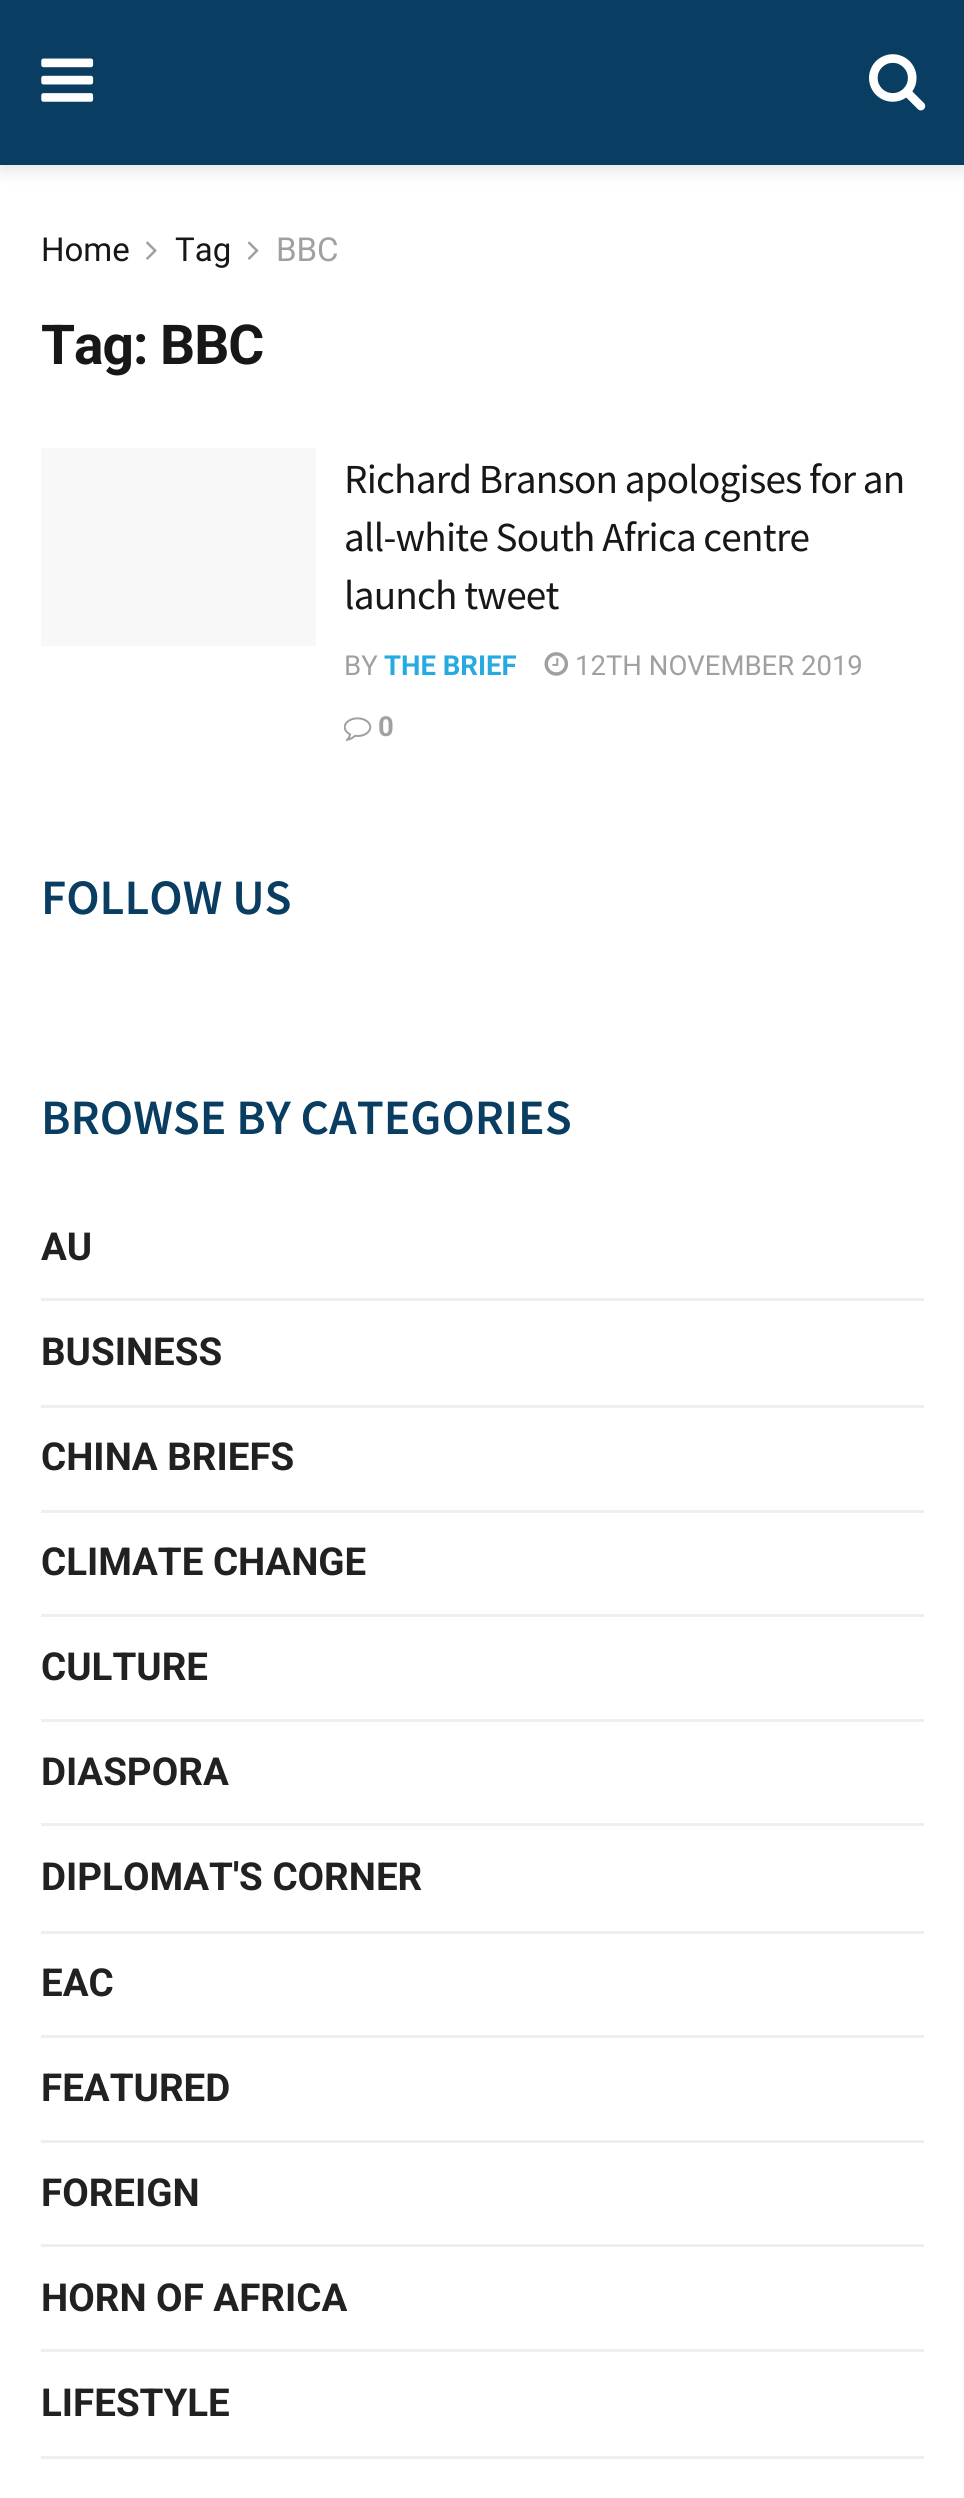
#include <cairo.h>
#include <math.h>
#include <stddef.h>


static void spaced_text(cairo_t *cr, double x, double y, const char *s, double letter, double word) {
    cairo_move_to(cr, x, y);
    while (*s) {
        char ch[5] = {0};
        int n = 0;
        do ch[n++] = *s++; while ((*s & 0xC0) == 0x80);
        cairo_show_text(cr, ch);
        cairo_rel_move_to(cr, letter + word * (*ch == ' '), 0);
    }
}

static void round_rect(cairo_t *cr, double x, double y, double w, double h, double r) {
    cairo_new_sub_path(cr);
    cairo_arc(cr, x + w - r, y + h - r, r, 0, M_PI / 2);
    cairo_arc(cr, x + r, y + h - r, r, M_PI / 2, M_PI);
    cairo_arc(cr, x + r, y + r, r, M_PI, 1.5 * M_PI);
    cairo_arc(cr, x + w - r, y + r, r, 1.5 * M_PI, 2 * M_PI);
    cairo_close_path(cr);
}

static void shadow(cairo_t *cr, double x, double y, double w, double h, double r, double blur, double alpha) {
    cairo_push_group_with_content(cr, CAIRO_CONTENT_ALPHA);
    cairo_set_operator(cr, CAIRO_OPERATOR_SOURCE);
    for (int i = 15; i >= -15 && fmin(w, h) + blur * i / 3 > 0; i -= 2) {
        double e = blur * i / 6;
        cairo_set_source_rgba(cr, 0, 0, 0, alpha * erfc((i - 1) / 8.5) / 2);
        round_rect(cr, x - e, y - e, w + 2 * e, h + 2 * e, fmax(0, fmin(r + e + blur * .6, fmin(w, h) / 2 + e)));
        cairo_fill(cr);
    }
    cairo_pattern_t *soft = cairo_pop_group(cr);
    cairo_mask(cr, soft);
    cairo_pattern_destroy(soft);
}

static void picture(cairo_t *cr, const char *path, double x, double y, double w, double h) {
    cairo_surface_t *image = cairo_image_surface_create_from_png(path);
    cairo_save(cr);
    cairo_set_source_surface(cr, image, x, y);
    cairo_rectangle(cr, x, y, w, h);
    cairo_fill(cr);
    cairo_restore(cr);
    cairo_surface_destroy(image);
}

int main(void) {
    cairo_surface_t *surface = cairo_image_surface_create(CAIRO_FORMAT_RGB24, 964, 2498);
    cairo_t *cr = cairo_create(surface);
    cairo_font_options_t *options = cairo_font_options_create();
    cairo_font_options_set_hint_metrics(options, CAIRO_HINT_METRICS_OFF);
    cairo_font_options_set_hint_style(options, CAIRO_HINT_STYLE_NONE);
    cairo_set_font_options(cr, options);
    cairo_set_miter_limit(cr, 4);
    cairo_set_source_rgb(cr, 1, 1, 1);
    cairo_paint(cr);
    cairo_set_source_rgb(cr, 0, 0, 0);
    shadow(cr, 0, 6, 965, 165, 0, 8, 0.1);
    cairo_set_source_rgb(cr, 0.039, 0.239, 0.384);
    cairo_rectangle(cr, 0, 0, 964, 165);
    cairo_fill(cr);
    picture(cr, "img1.png", 41, 58, 53, 44);
    picture(cr, "img2.png", 869, 54, 57, 57);
    cairo_select_font_face(cr, "Roboto", CAIRO_FONT_SLANT_NORMAL, CAIRO_FONT_WEIGHT_NORMAL);
    cairo_set_font_size(cr, 33);
    cairo_set_source_rgb(cr, 0.09, 0.09, 0.09);
    cairo_move_to(cr, 41, 261);
    cairo_show_text(cr, "Home");
    picture(cr, "img3.png", 146, 241, 11, 19);
    cairo_move_to(cr, 175, 261);
    cairo_show_text(cr, "Tag");
    picture(cr, "img4.png", 247, 241, 12, 19);
    cairo_set_source_rgb(cr, 0.627, 0.627, 0.627);
    cairo_move_to(cr, 276, 261);
    cairo_show_text(cr, "BBC");
    cairo_select_font_face(cr, "Roboto", CAIRO_FONT_SLANT_NORMAL, CAIRO_FONT_WEIGHT_BOLD);
    cairo_set_font_size(cr, 55);
    cairo_set_source_rgb(cr, 0.09, 0.09, 0.09);
    spaced_text(cr, 41, 364, "Tag: BBC", -1, 0);
    cairo_set_source_rgb(cr, 0.969, 0.969, 0.969);
    cairo_rectangle(cr, 41, 448, 275, 198);
    cairo_fill(cr);
    cairo_select_font_face(cr, "Source Sans Pro", CAIRO_FONT_SLANT_NORMAL, CAIRO_FONT_WEIGHT_NORMAL);
    cairo_set_font_size(cr, 41.25);
    cairo_set_source_rgb(cr, 0.09, 0.09, 0.09);
    spaced_text(cr, 344, 493, "Richard Branson apologises for an", -0.8, 0);
    spaced_text(cr, 344, 551, "all-white South Africa centre", -0.8, 0);
    spaced_text(cr, 344, 609, "launch tweet", -0.8, 0);
    cairo_select_font_face(cr, "Roboto", CAIRO_FONT_SLANT_NORMAL, CAIRO_FONT_WEIGHT_NORMAL);
    cairo_set_font_size(cr, 27.5);
    cairo_set_source_rgb(cr, 0.627, 0.627, 0.627);
    cairo_move_to(cr, 344, 675);
    cairo_show_text(cr, "BY");
    cairo_select_font_face(cr, "Roboto", CAIRO_FONT_SLANT_NORMAL, CAIRO_FONT_WEIGHT_BOLD);
    cairo_set_source_rgb(cr, 0.145, 0.667, 0.886);
    cairo_move_to(cr, 384, 675);
    cairo_show_text(cr, "THE BRIEF");
    picture(cr, "img5.png", 544, 652, 25, 24);
    cairo_select_font_face(cr, "Roboto", CAIRO_FONT_SLANT_NORMAL, CAIRO_FONT_WEIGHT_NORMAL);
    cairo_set_source_rgb(cr, 0.627, 0.627, 0.627);
    cairo_move_to(cr, 575, 675);
    cairo_show_text(cr, "12TH NOVEMBER 2019");
    picture(cr, "img6.png", 344, 717, 28, 24);
    cairo_select_font_face(cr, "Roboto", CAIRO_FONT_SLANT_NORMAL, CAIRO_FONT_WEIGHT_BOLD);
    cairo_move_to(cr, 378, 736);
    cairo_show_text(cr, "0");
    cairo_select_font_face(cr, "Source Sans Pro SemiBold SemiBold", CAIRO_FONT_SLANT_NORMAL, CAIRO_FONT_WEIGHT_NORMAL);
    cairo_set_font_size(cr, 49.5);
    cairo_set_source_rgb(cr, 0.039, 0.239, 0.38);
    cairo_move_to(cr, 41, 914);
    cairo_show_text(cr, "FOLLOW US");
    cairo_move_to(cr, 41, 1134);
    cairo_show_text(cr, "BROWSE BY CATEGORIES");
    cairo_select_font_face(cr, "Roboto", CAIRO_FONT_SLANT_NORMAL, CAIRO_FONT_WEIGHT_BOLD);
    cairo_set_font_size(cr, 38.5);
    cairo_set_source_rgb(cr, 0.129, 0.129, 0.129);
    cairo_move_to(cr, 41, 1260);
    cairo_show_text(cr, "AU");
    cairo_set_source_rgb(cr, 0.933, 0.933, 0.933);
    cairo_rectangle(cr, 41, 1298, 883, 3);
    cairo_fill(cr);
    cairo_set_source_rgb(cr, 0.129, 0.129, 0.129);
    cairo_move_to(cr, 41, 1365);
    cairo_show_text(cr, "BUSINESS");
    cairo_set_source_rgb(cr, 0.933, 0.933, 0.933);
    cairo_rectangle(cr, 41, 1405, 883, 3);
    cairo_fill(cr);
    cairo_set_source_rgb(cr, 0.129, 0.129, 0.129);
    cairo_move_to(cr, 41, 1470);
    cairo_show_text(cr, "CHINA BRIEFS");
    cairo_set_source_rgb(cr, 0.933, 0.933, 0.933);
    cairo_rectangle(cr, 41, 1510, 883, 3);
    cairo_fill(cr);
    cairo_set_source_rgb(cr, 0.129, 0.129, 0.129);
    cairo_move_to(cr, 41, 1575);
    cairo_show_text(cr, "CLIMATE CHANGE");
    cairo_set_source_rgb(cr, 0.933, 0.933, 0.933);
    cairo_rectangle(cr, 41, 1614, 883, 3);
    cairo_fill(cr);
    cairo_set_source_rgb(cr, 0.129, 0.129, 0.129);
    cairo_move_to(cr, 41, 1680);
    cairo_show_text(cr, "CULTURE");
    cairo_set_source_rgb(cr, 0.933, 0.933, 0.933);
    cairo_rectangle(cr, 41, 1719, 883, 3);
    cairo_fill(cr);
    cairo_set_source_rgb(cr, 0.129, 0.129, 0.129);
    cairo_move_to(cr, 41, 1785);
    cairo_show_text(cr, "DIASPORA");
    cairo_set_source_rgb(cr, 0.933, 0.933, 0.933);
    cairo_rectangle(cr, 41, 1823, 883, 3);
    cairo_fill(cr);
    cairo_set_source_rgb(cr, 0.129, 0.129, 0.129);
    cairo_move_to(cr, 41, 1890);
    cairo_show_text(cr, "DIPLOMAT'S CORNER");
    cairo_set_source_rgb(cr, 0.933, 0.933, 0.933);
    cairo_rectangle(cr, 41, 1931, 883, 3);
    cairo_fill(cr);
    cairo_set_source_rgb(cr, 0.129, 0.129, 0.129);
    cairo_move_to(cr, 41, 1996);
    cairo_show_text(cr, "EAC");
    cairo_set_source_rgb(cr, 0.933, 0.933, 0.933);
    cairo_rectangle(cr, 41, 2035, 883, 3);
    cairo_fill(cr);
    cairo_set_source_rgb(cr, 0.129, 0.129, 0.129);
    cairo_move_to(cr, 41, 2101);
    cairo_show_text(cr, "FEATURED");
    cairo_set_source_rgb(cr, 0.933, 0.933, 0.933);
    cairo_rectangle(cr, 41, 2140, 883, 3);
    cairo_fill(cr);
    cairo_set_source_rgb(cr, 0.129, 0.129, 0.129);
    cairo_move_to(cr, 41, 2206);
    cairo_show_text(cr, "FOREIGN");
    cairo_set_source_rgb(cr, 0.933, 0.933, 0.933);
    cairo_rectangle(cr, 41, 2244, 883, 3);
    cairo_fill(cr);
    cairo_set_source_rgb(cr, 0.129, 0.129, 0.129);
    cairo_move_to(cr, 41, 2311);
    cairo_show_text(cr, "HORN OF AFRICA");
    cairo_set_source_rgb(cr, 0.933, 0.933, 0.933);
    cairo_rectangle(cr, 41, 2349, 883, 3);
    cairo_fill(cr);
    cairo_set_source_rgb(cr, 0.129, 0.129, 0.129);
    cairo_move_to(cr, 41, 2416);
    cairo_show_text(cr, "LIFESTYLE");
    cairo_set_source_rgb(cr, 0.933, 0.933, 0.933);
    cairo_rectangle(cr, 41, 2456, 883, 3);
    cairo_fill(cr);
    cairo_surface_write_to_png(surface, "page.png");
    cairo_font_options_destroy(options);
    cairo_destroy(cr);
    cairo_surface_destroy(surface);
    return 0;
}
